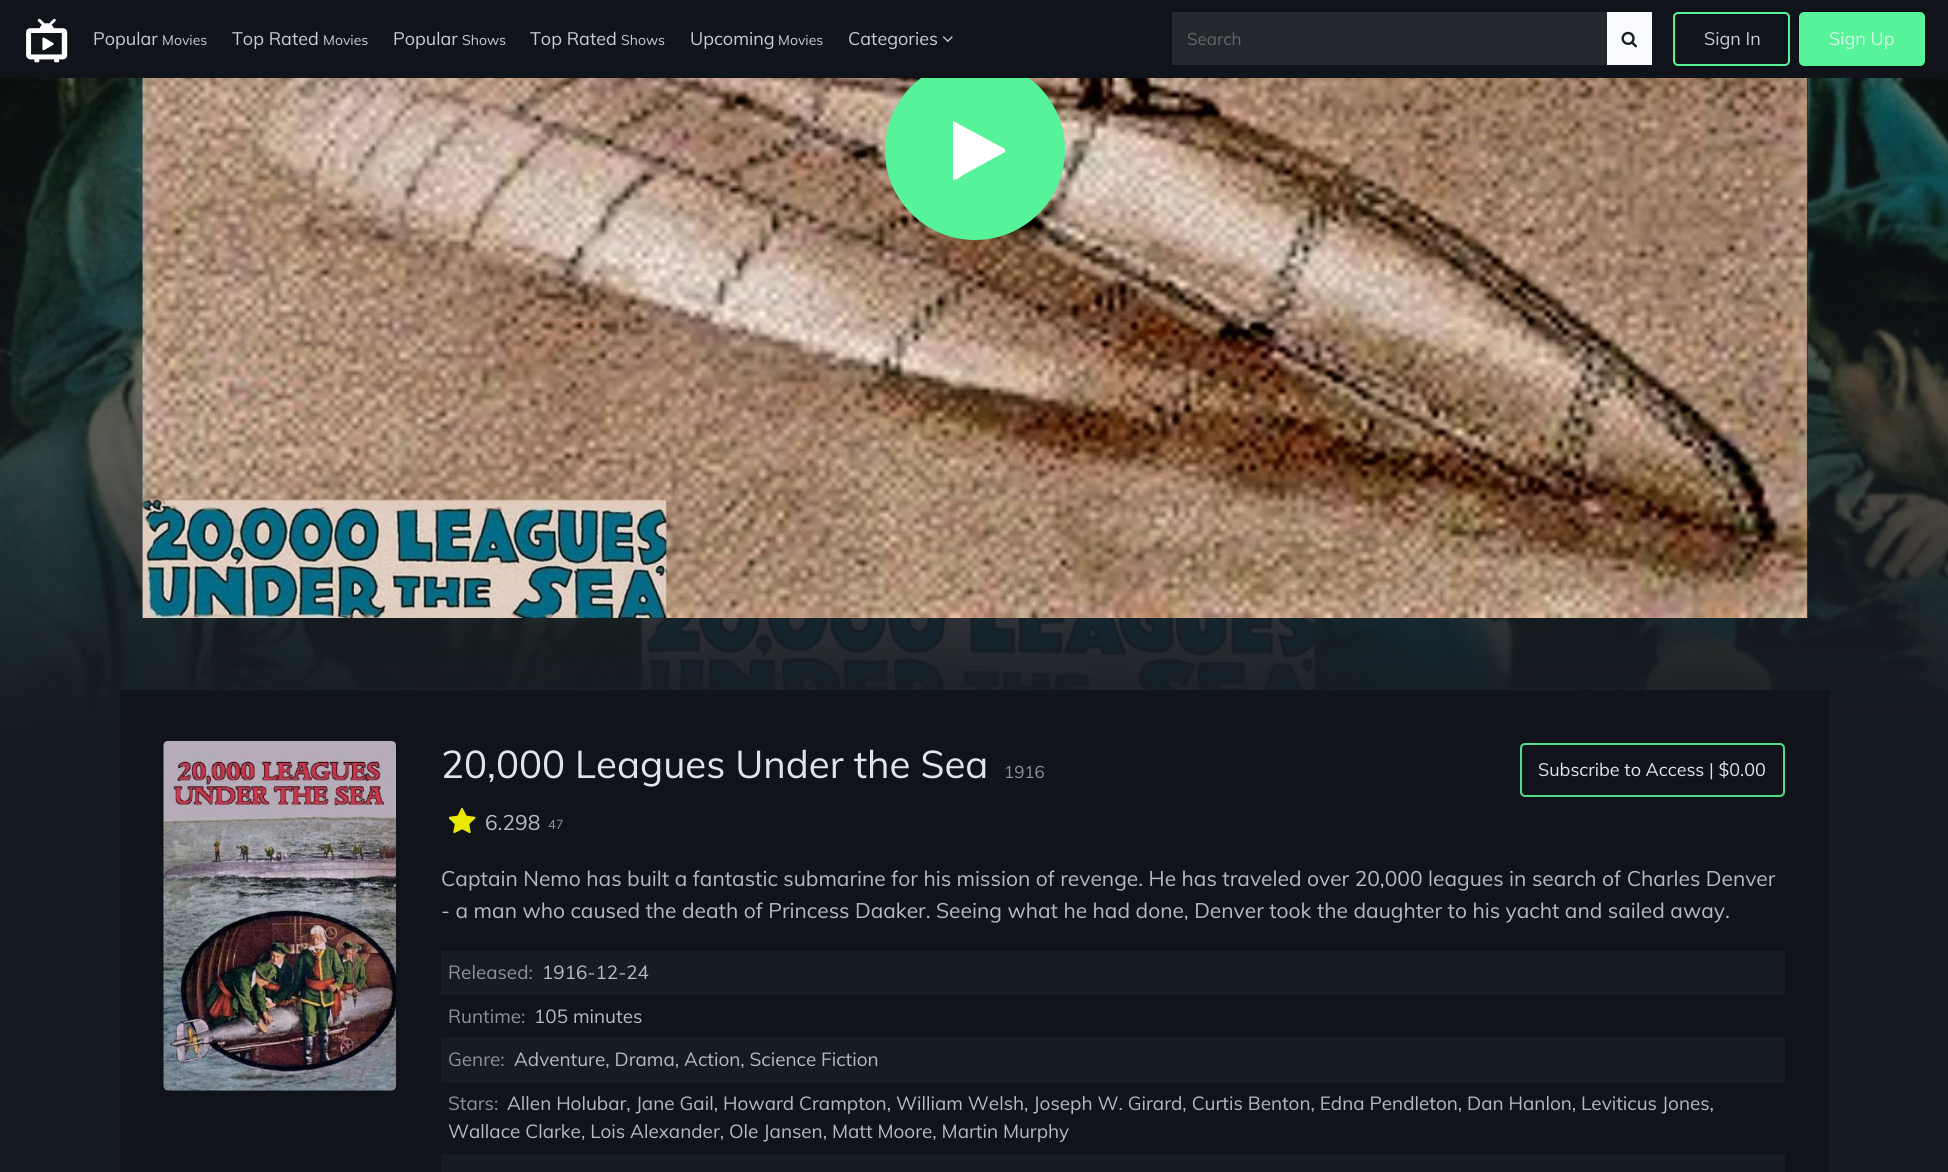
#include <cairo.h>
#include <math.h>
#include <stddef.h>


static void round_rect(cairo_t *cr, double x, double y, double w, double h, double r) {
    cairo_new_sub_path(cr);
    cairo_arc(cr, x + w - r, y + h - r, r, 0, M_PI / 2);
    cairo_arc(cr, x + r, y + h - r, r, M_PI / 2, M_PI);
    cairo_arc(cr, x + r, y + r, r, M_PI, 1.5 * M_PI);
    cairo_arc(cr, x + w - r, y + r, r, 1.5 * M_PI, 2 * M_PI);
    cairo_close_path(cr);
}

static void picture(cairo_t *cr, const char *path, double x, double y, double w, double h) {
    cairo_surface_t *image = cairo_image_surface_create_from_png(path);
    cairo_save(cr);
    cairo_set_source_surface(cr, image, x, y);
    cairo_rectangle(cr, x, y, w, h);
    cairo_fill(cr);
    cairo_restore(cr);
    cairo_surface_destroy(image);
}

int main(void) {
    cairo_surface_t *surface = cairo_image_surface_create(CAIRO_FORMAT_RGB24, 1948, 1172);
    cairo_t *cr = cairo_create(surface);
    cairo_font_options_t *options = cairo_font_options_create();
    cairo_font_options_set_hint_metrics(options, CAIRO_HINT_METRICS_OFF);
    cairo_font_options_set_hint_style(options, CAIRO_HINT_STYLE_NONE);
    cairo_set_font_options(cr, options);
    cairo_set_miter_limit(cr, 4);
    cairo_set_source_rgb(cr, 0.086, 0.11, 0.137);
    cairo_paint(cr);
    picture(cr, "img4.png", 0, 78, 1948, 645);
    cairo_set_source_rgba(cr, 0.024, 0.031, 0.039, 0.8);
    cairo_rectangle(cr, 1807, 78, 1, 540);
    cairo_fill(cr);
    picture(cr, "img5.png", 142, 78, 1666, 540);
    picture(cr, "img6.png", 142, 78, 1664, 540);
    cairo_set_source_rgb(cr, 0.341, 0.953, 0.596);
    cairo_arc(cr, 975, 150, 90, 0, 2 * M_PI);
    cairo_fill(cr);
    cairo_set_source_rgb(cr, 0.063, 0.078, 0.102);
    cairo_rectangle(cr, 0, 0, 1948, 78);
    cairo_fill(cr);
    picture(cr, "img1.png", 26, 18, 42, 45);
    cairo_select_font_face(cr, "Muli", CAIRO_FONT_SLANT_NORMAL, CAIRO_FONT_WEIGHT_NORMAL);
    cairo_set_font_size(cr, 18);
    cairo_set_source_rgb(cr, 0.792, 0.804, 0.82);
    cairo_move_to(cr, 93, 45);
    cairo_show_text(cr, "Popular");
    cairo_set_font_size(cr, 14);
    cairo_move_to(cr, 162, 45);
    cairo_show_text(cr, "Movies");
    cairo_set_font_size(cr, 18);
    cairo_move_to(cr, 232, 45);
    cairo_show_text(cr, "Top Rated");
    cairo_set_font_size(cr, 14);
    cairo_move_to(cr, 323, 45);
    cairo_show_text(cr, "Movies");
    cairo_set_font_size(cr, 18);
    cairo_move_to(cr, 393, 45);
    cairo_show_text(cr, "Popular");
    cairo_set_font_size(cr, 14);
    cairo_move_to(cr, 462, 45);
    cairo_show_text(cr, "Shows");
    cairo_set_font_size(cr, 18);
    cairo_move_to(cr, 530, 45);
    cairo_show_text(cr, "Top Rated");
    cairo_set_font_size(cr, 14);
    cairo_move_to(cr, 621, 45);
    cairo_show_text(cr, "Shows");
    cairo_set_font_size(cr, 18);
    cairo_move_to(cr, 690, 45);
    cairo_show_text(cr, "Upcoming");
    cairo_set_font_size(cr, 14);
    cairo_move_to(cr, 778, 45);
    cairo_show_text(cr, "Movies");
    cairo_set_font_size(cr, 18);
    cairo_move_to(cr, 848, 45);
    cairo_show_text(cr, "Categories");
    picture(cr, "img2.png", 942, 36, 11, 6);
    cairo_set_source_rgb(cr, 0.141, 0.157, 0.18);
    cairo_rectangle(cr, 1172, 12, 435, 53);
    cairo_fill(cr);
    cairo_set_font_size(cr, 17);
    cairo_set_source_rgb(cr, 0.4, 0.4, 0.404);
    cairo_move_to(cr, 1187, 45);
    cairo_show_text(cr, "Search");
    cairo_set_source_rgb(cr, 0.973, 0.984, 1);
    cairo_rectangle(cr, 1607, 12, 45, 53);
    cairo_fill(cr);
    picture(cr, "img3.png", 1621, 31, 17, 17);
    round_rect(cr, 1674, 13, 115, 52, 4);
    cairo_set_source_rgb(cr, 0.341, 0.953, 0.596);
    cairo_stroke(cr);
    cairo_set_font_size(cr, 18);
    cairo_set_source_rgb(cr, 0.792, 0.804, 0.82);
    cairo_move_to(cr, 1704, 45);
    cairo_show_text(cr, "Sign In");
    cairo_set_source_rgb(cr, 0.341, 0.953, 0.596);
    round_rect(cr, 1800, 13, 124, 52, 4);
    cairo_fill_preserve(cr);
    cairo_stroke(cr);
    cairo_set_source_rgb(cr, 0.847, 0.976, 0.918);
    cairo_move_to(cr, 1829, 45);
    cairo_show_text(cr, "Sign Up");
    cairo_set_source_rgb(cr, 1, 1, 1);
    cairo_new_path(cr);
    cairo_move_to(cr, 1005, 152);
    cairo_line_to(cr, 963, 175);
    cairo_curve_to(cr, 962, 176, 954, 182, 953, 179);
    cairo_line_to(cr, 953, 122);
    cairo_line_to(cr, 953, 121);
    cairo_line_to(cr, 1005, 149);
    cairo_line_to(cr, 1005, 150);
    cairo_close_path(cr);
    cairo_fill(cr);
    cairo_set_source_rgba(cr, 0.063, 0.078, 0.102, 0.9);
    cairo_rectangle(cr, 120, 690, 1710, 482);
    cairo_fill(cr);
    picture(cr, "img7.png", 163, 741, 233, 350);
    cairo_set_font_size(cr, 38.4);
    cairo_set_source_rgb(cr, 0.882, 0.898, 0.914);
    cairo_move_to(cr, 441, 778);
    cairo_show_text(cr, "20,000 Leagues Under the Sea");
    cairo_set_font_size(cr, 17);
    cairo_set_source_rgb(cr, 0.557, 0.573, 0.592);
    cairo_move_to(cr, 1004, 778);
    cairo_show_text(cr, "1916");
    round_rect(cr, 1521, 744, 263, 52, 4);
    cairo_set_source_rgb(cr, 0.318, 0.871, 0.549);
    cairo_stroke(cr);
    cairo_set_font_size(cr, 18);
    cairo_set_source_rgb(cr, 0.882, 0.898, 0.914);
    cairo_move_to(cr, 1538, 776);
    cairo_show_text(cr, "Subscribe to Access | $0.00");
    picture(cr, "img8.png", 449, 807, 27, 27);
    cairo_set_font_size(cr, 21);
    cairo_set_source_rgb(cr, 0.718, 0.733, 0.753);
    cairo_move_to(cr, 485, 830);
    cairo_show_text(cr, "6.298");
    cairo_set_font_size(cr, 13);
    cairo_set_source_rgb(cr, 0.557, 0.573, 0.592);
    cairo_move_to(cr, 548, 829);
    cairo_show_text(cr, "47");
    cairo_set_font_size(cr, 21);
    cairo_set_source_rgb(cr, 0.718, 0.733, 0.753);
    cairo_move_to(cr, 441, 886);
    cairo_show_text(cr, "Captain Nemo has built a fantastic submarine for his mission of revenge. He has traveled over 20,000 leagues in search of Charles Denver");
    cairo_move_to(cr, 441, 918);
    cairo_show_text(cr, "- a man who caused the death of Princess Daaker. Seeing what he had done, Denver took the daughter to his yacht and sailed away.");
    cairo_set_source_rgb(cr, 0.086, 0.11, 0.137);
    cairo_rectangle(cr, 441, 951, 1344, 44);
    cairo_fill(cr);
    cairo_set_font_size(cr, 18.9);
    cairo_set_source_rgb(cr, 0.557, 0.573, 0.592);
    cairo_move_to(cr, 448, 979);
    cairo_show_text(cr, "Released:");
    cairo_set_source_rgb(cr, 0.718, 0.733, 0.753);
    cairo_move_to(cr, 542, 979);
    cairo_show_text(cr, "1916-12-24");
    cairo_set_source_rgb(cr, 0.557, 0.573, 0.592);
    cairo_move_to(cr, 448, 1023);
    cairo_show_text(cr, "Runtime:");
    cairo_set_source_rgb(cr, 0.718, 0.733, 0.753);
    cairo_move_to(cr, 534, 1023);
    cairo_show_text(cr, "105 minutes");
    cairo_set_source_rgb(cr, 0.086, 0.11, 0.137);
    cairo_rectangle(cr, 441, 1038, 1344, 44);
    cairo_fill(cr);
    cairo_set_source_rgb(cr, 0.557, 0.573, 0.592);
    cairo_move_to(cr, 448, 1066);
    cairo_show_text(cr, "Genre:");
    cairo_set_source_rgb(cr, 0.718, 0.733, 0.753);
    cairo_move_to(cr, 514, 1066);
    cairo_show_text(cr, "Adventure, Drama, Action, Science Fiction");
    cairo_set_source_rgb(cr, 0.557, 0.573, 0.592);
    cairo_move_to(cr, 448, 1110);
    cairo_show_text(cr, "Stars:");
    cairo_set_source_rgb(cr, 0.718, 0.733, 0.753);
    cairo_move_to(cr, 507, 1110);
    cairo_show_text(cr, "Allen Holubar, Jane Gail, Howard Crampton, William Welsh, Joseph W. Girard, Curtis Benton, Edna Pendleton, Dan Hanlon, Leviticus Jones,");
    cairo_move_to(cr, 448, 1138);
    cairo_show_text(cr, "Wallace Clarke, Lois Alexander, Ole Jansen, Matt Moore, Martin Murphy");
    cairo_set_source_rgb(cr, 0.086, 0.11, 0.137);
    cairo_rectangle(cr, 441, 1154, 1344, 18);
    cairo_fill(cr);
    cairo_surface_write_to_png(surface, "page.png");
    cairo_font_options_destroy(options);
    cairo_destroy(cr);
    cairo_surface_destroy(surface);
    return 0;
}
